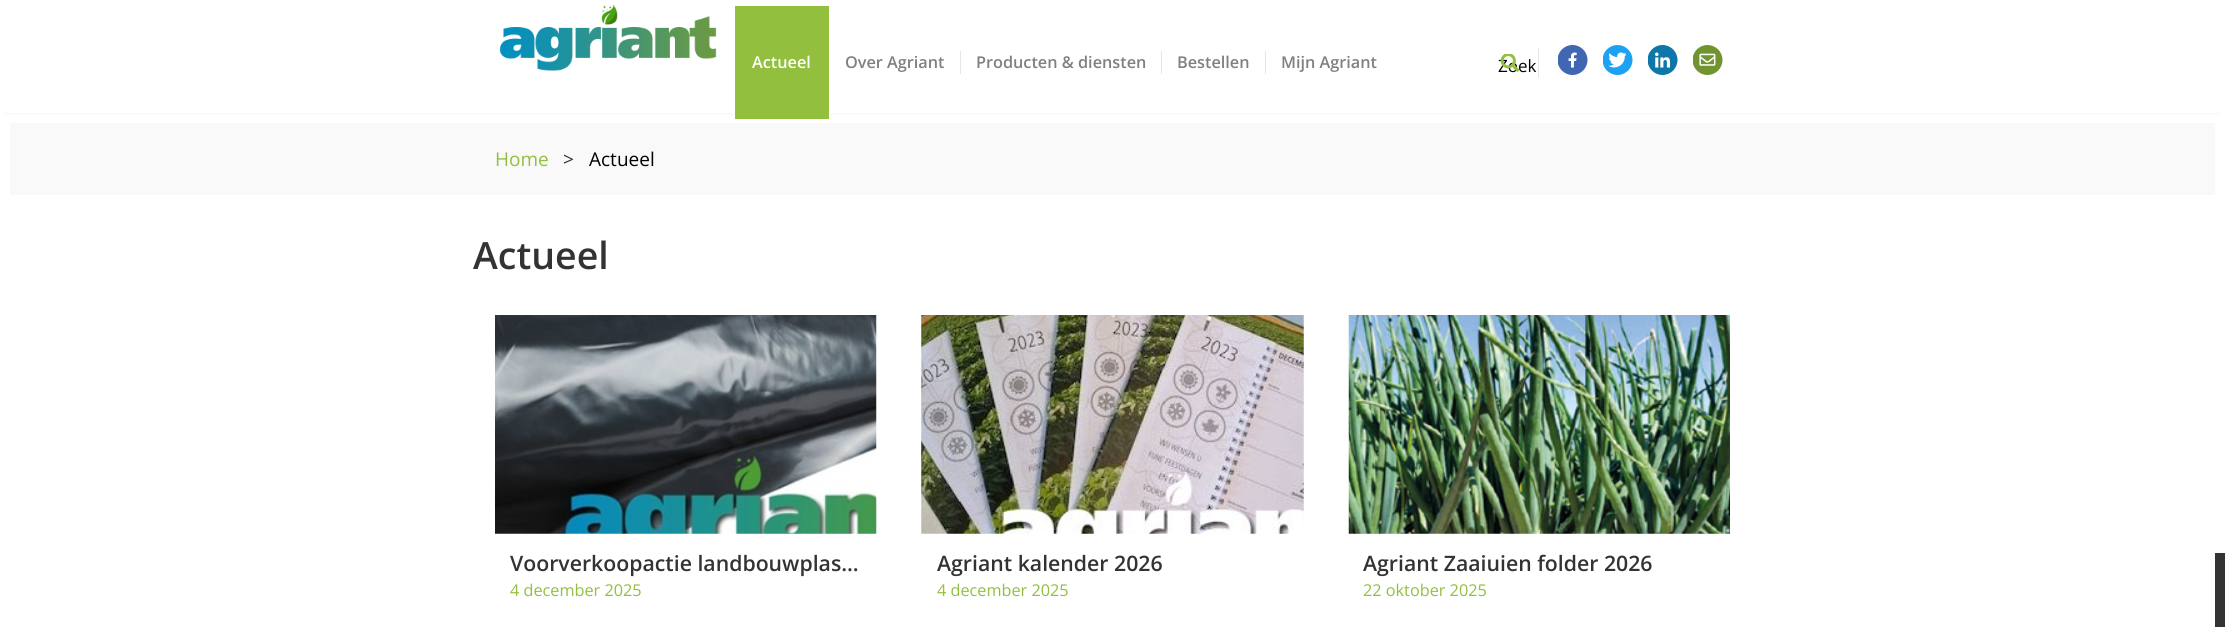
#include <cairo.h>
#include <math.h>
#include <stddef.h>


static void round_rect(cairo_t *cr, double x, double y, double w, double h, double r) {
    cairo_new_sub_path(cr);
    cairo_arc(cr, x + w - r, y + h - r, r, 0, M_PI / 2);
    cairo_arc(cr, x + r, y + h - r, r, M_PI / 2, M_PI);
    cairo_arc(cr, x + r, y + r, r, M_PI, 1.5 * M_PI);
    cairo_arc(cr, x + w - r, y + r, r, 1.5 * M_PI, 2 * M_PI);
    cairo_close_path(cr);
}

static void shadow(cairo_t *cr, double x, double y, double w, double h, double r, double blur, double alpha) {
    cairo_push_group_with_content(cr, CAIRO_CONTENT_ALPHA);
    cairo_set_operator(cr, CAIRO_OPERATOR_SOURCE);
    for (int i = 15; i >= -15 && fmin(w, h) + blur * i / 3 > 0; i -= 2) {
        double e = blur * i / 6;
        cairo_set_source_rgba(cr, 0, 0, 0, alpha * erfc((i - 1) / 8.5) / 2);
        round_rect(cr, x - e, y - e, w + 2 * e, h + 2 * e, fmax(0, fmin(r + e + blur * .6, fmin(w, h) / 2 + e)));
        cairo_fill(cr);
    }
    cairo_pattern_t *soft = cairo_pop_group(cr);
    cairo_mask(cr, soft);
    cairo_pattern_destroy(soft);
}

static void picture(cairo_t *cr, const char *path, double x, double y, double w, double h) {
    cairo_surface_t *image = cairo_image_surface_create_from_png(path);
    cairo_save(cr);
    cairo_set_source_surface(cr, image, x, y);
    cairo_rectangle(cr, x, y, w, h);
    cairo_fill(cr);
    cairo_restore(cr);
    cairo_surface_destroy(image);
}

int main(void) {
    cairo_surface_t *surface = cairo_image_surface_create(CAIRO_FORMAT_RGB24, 2225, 627);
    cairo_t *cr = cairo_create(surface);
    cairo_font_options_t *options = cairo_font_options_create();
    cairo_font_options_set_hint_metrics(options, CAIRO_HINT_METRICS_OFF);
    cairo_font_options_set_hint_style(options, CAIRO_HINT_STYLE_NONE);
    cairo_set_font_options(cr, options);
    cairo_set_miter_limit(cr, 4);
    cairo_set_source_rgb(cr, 1, 1, 1);
    cairo_paint(cr);
    cairo_set_source_rgb(cr, 0, 0, 0);
    shadow(cr, 6, 10, 2213, 100, 0, 2, 0.75);
    cairo_set_source_rgb(cr, 1, 1, 1);
    cairo_rectangle(cr, 2, 6, 2221, 107);
    cairo_fill(cr);
    picture(cr, "img1.png", 499, 4, 218, 67);
    cairo_set_source_rgb(cr, 0.573, 0.749, 0.239);
    cairo_rectangle(cr, 735, 6, 94, 113);
    cairo_fill(cr);
    cairo_select_font_face(cr, "Open Sans SemiBold", CAIRO_FONT_SLANT_NORMAL, CAIRO_FONT_WEIGHT_NORMAL);
    cairo_set_font_size(cr, 16.25);
    cairo_set_source_rgb(cr, 1, 1, 1);
    cairo_move_to(cr, 752, 68);
    cairo_show_text(cr, "Actueel");
    cairo_set_source_rgb(cr, 0.502, 0.502, 0.502);
    cairo_move_to(cr, 845, 68);
    cairo_show_text(cr, "Over Agriant");
    cairo_set_source_rgb(cr, 0.902, 0.902, 0.902);
    cairo_rectangle(cr, 960, 51, 1, 23);
    cairo_fill(cr);
    cairo_set_source_rgb(cr, 0.502, 0.502, 0.502);
    cairo_move_to(cr, 976, 68);
    cairo_show_text(cr, "Producten & diensten");
    cairo_set_source_rgb(cr, 0.902, 0.902, 0.902);
    cairo_rectangle(cr, 1161, 51, 1, 23);
    cairo_fill(cr);
    cairo_set_source_rgb(cr, 0.502, 0.502, 0.502);
    cairo_move_to(cr, 1177, 68);
    cairo_show_text(cr, "Bestellen");
    cairo_set_source_rgb(cr, 0.902, 0.902, 0.902);
    cairo_rectangle(cr, 1265, 51, 1, 23);
    cairo_fill(cr);
    cairo_set_source_rgb(cr, 0.502, 0.502, 0.502);
    cairo_move_to(cr, 1281, 68);
    cairo_show_text(cr, "Mijn Agriant");
    cairo_select_font_face(cr, "Open Sans", CAIRO_FONT_SLANT_NORMAL, CAIRO_FONT_WEIGHT_NORMAL);
    cairo_set_font_size(cr, 17);
    cairo_set_source_rgb(cr, 0, 0, 0);
    cairo_move_to(cr, 1498, 72);
    cairo_show_text(cr, "Zoek");
    picture(cr, "img2.png", 1500, 54, 20, 18);
    cairo_set_source_rgb(cr, 0.902, 0.902, 0.902);
    cairo_rectangle(cr, 1538, 48, 1, 30);
    cairo_fill(cr);
    picture(cr, "img3.png", 1558, 45, 30, 30);
    picture(cr, "img4.png", 1603, 45, 30, 30);
    picture(cr, "img5.png", 1648, 45, 30, 30);
    picture(cr, "img6.png", 1693, 45, 30, 30);
    cairo_set_source_rgb(cr, 0.976, 0.976, 0.976);
    cairo_rectangle(cr, 10, 123, 2205, 72);
    cairo_fill(cr);
    cairo_set_font_size(cr, 19);
    cairo_set_source_rgb(cr, 0.573, 0.749, 0.239);
    cairo_move_to(cr, 495, 166);
    cairo_show_text(cr, "Home");
    cairo_set_source_rgb(cr, 0.2, 0.2, 0.2);
    cairo_move_to(cr, 563, 166);
    cairo_show_text(cr, ">");
    cairo_set_source_rgb(cr, 0, 0, 0);
    cairo_move_to(cr, 589, 166);
    cairo_show_text(cr, "Actueel");
    cairo_select_font_face(cr, "Open Sans SemiBold", CAIRO_FONT_SLANT_NORMAL, CAIRO_FONT_WEIGHT_NORMAL);
    cairo_set_font_size(cr, 37.5);
    cairo_set_source_rgb(cr, 0.2, 0.2, 0.2);
    cairo_move_to(cr, 473, 269);
    cairo_show_text(cr, "Actueel");
    picture(cr, "img7.png", 495, 315, 382, 219);
    cairo_set_font_size(cr, 21.25);
    cairo_move_to(cr, 510, 571);
    cairo_show_text(cr, "Voorverkoopactie landbouwplas…");
    cairo_select_font_face(cr, "Open Sans", CAIRO_FONT_SLANT_NORMAL, CAIRO_FONT_WEIGHT_NORMAL);
    cairo_set_font_size(cr, 16.25);
    cairo_set_source_rgb(cr, 0.573, 0.749, 0.239);
    cairo_move_to(cr, 510, 596);
    cairo_show_text(cr, "4 december 2025");
    picture(cr, "img8.png", 921, 315, 383, 219);
    cairo_select_font_face(cr, "Open Sans SemiBold", CAIRO_FONT_SLANT_NORMAL, CAIRO_FONT_WEIGHT_NORMAL);
    cairo_set_font_size(cr, 21.25);
    cairo_set_source_rgb(cr, 0.2, 0.2, 0.2);
    cairo_move_to(cr, 937, 571);
    cairo_show_text(cr, "Agriant kalender 2026");
    cairo_select_font_face(cr, "Open Sans", CAIRO_FONT_SLANT_NORMAL, CAIRO_FONT_WEIGHT_NORMAL);
    cairo_set_font_size(cr, 16.25);
    cairo_set_source_rgb(cr, 0.573, 0.749, 0.239);
    cairo_move_to(cr, 937, 596);
    cairo_show_text(cr, "4 december 2025");
    picture(cr, "img9.png", 1348, 315, 382, 219);
    cairo_select_font_face(cr, "Open Sans SemiBold", CAIRO_FONT_SLANT_NORMAL, CAIRO_FONT_WEIGHT_NORMAL);
    cairo_set_font_size(cr, 21.25);
    cairo_set_source_rgb(cr, 0.2, 0.2, 0.2);
    cairo_move_to(cr, 1363, 571);
    cairo_show_text(cr, "Agriant Zaaiuien folder 2026");
    cairo_select_font_face(cr, "Open Sans", CAIRO_FONT_SLANT_NORMAL, CAIRO_FONT_WEIGHT_NORMAL);
    cairo_set_font_size(cr, 16.25);
    cairo_set_source_rgb(cr, 0.573, 0.749, 0.239);
    cairo_move_to(cr, 1363, 596);
    cairo_show_text(cr, "22 oktober 2025");
    cairo_set_source_rgb(cr, 0.2, 0.2, 0.2);
    cairo_rectangle(cr, 2215, 553, 10, 74);
    cairo_fill(cr);
    cairo_surface_write_to_png(surface, "page.png");
    cairo_font_options_destroy(options);
    cairo_destroy(cr);
    cairo_surface_destroy(surface);
    return 0;
}
